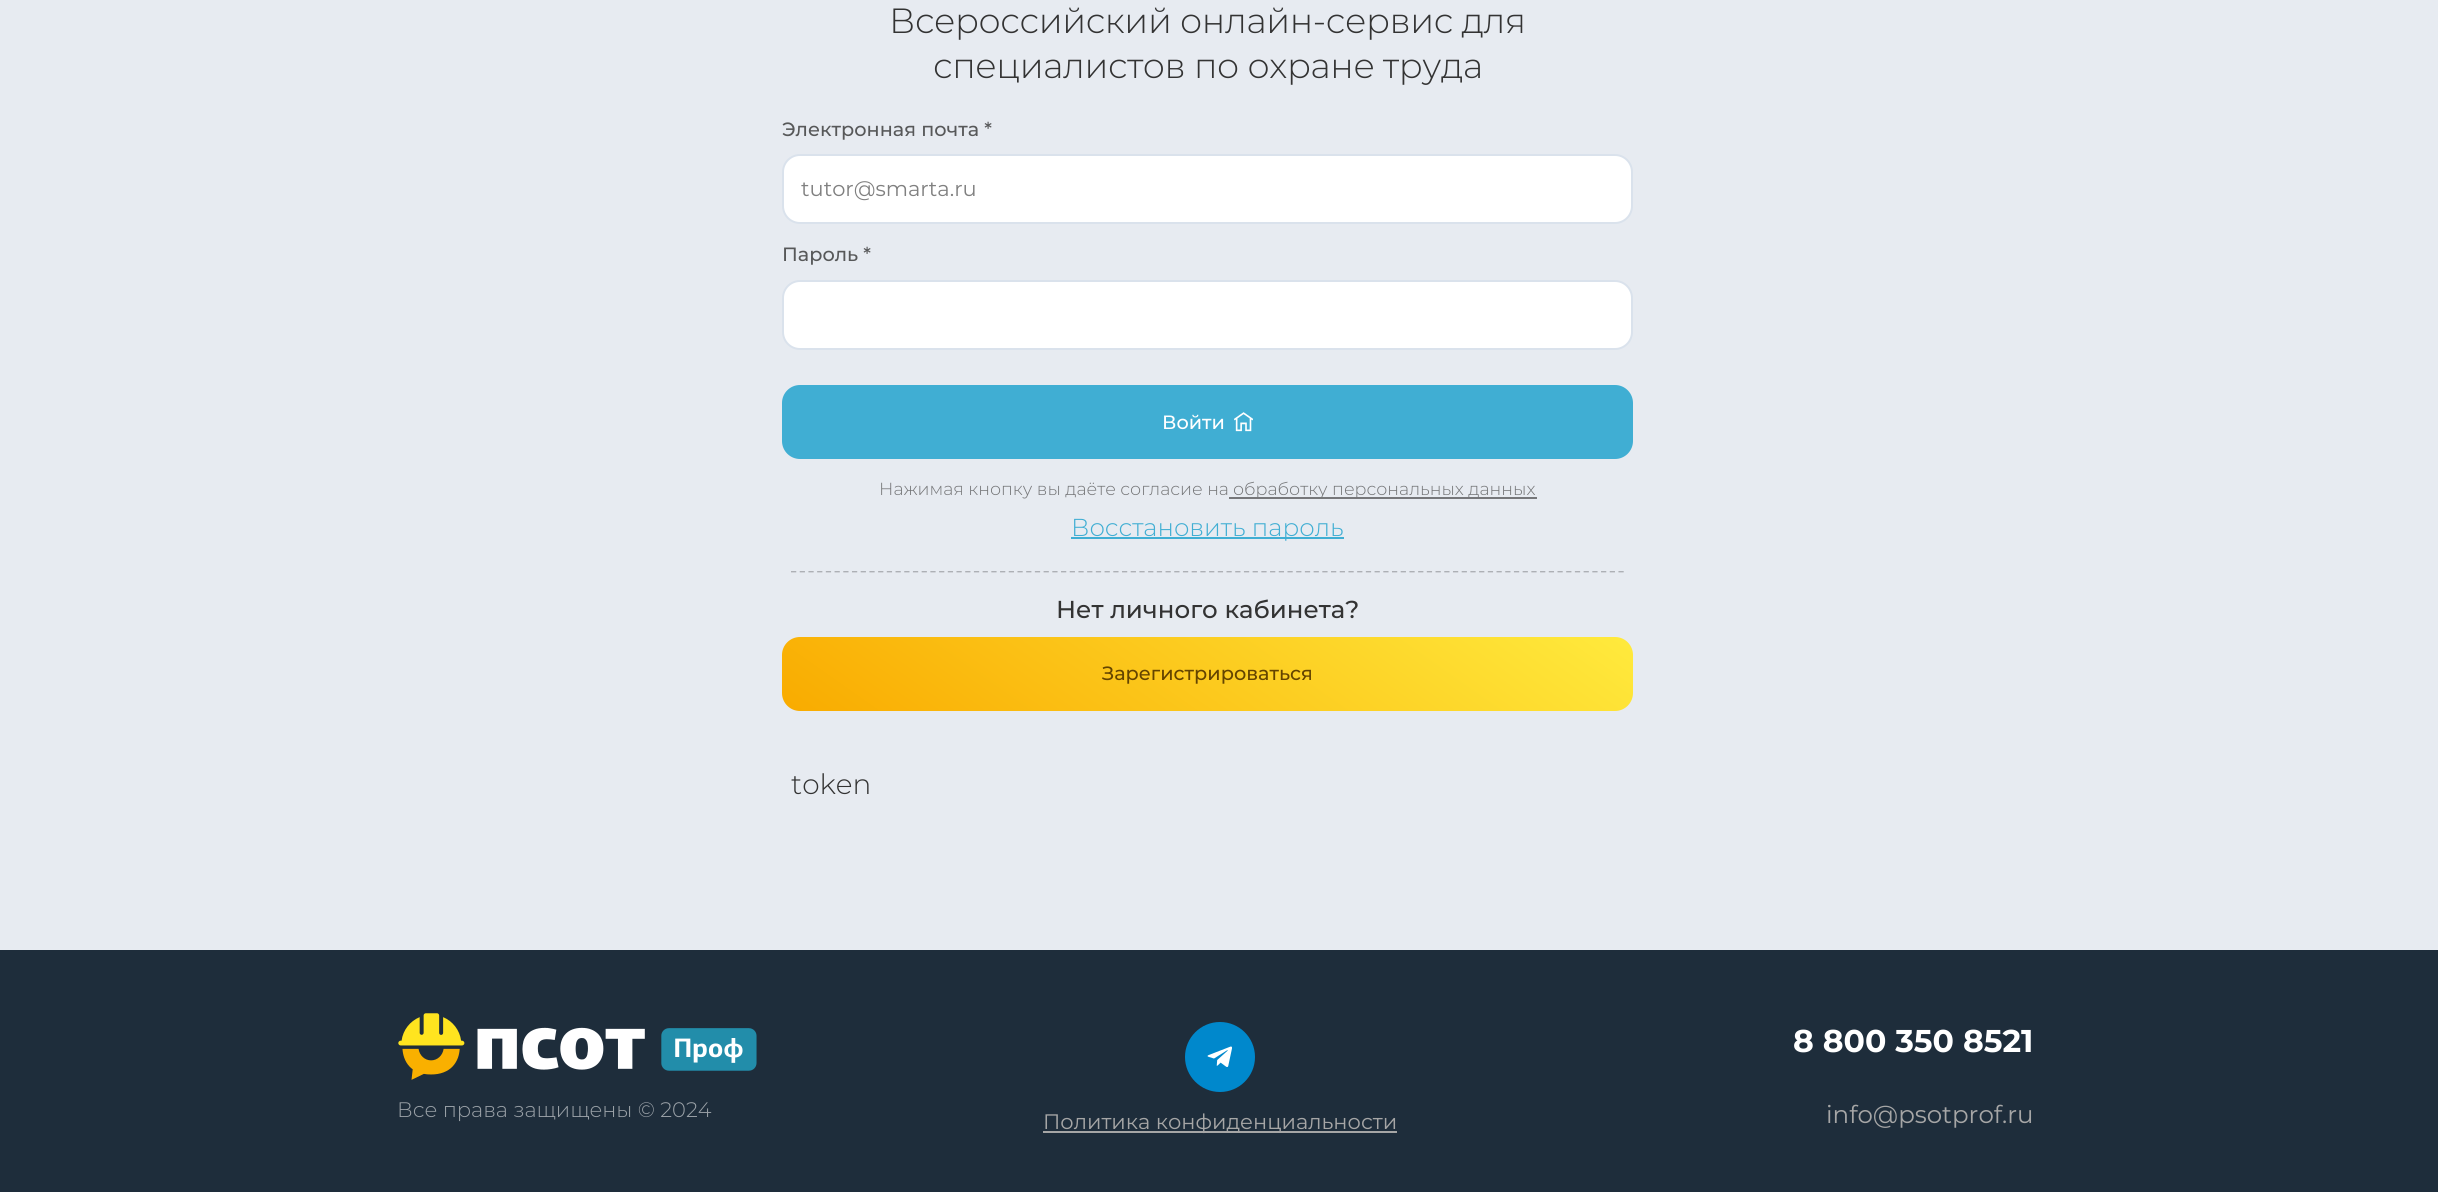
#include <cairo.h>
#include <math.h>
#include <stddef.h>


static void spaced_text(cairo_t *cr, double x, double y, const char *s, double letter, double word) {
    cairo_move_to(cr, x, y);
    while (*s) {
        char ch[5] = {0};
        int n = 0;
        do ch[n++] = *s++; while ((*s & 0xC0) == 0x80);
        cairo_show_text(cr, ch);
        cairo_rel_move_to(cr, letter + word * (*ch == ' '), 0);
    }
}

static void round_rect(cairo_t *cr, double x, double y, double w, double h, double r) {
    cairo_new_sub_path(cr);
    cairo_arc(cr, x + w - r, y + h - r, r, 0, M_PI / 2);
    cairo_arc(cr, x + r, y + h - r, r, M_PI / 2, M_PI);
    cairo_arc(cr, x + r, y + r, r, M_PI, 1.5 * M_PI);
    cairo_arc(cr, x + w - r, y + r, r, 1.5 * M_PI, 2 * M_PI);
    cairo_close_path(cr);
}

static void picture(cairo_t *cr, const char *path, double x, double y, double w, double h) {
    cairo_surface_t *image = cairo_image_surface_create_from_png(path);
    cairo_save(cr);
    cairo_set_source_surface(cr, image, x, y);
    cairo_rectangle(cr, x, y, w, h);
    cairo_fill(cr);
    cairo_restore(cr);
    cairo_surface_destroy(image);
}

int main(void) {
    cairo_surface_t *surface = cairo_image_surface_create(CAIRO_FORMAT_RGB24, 2438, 1192);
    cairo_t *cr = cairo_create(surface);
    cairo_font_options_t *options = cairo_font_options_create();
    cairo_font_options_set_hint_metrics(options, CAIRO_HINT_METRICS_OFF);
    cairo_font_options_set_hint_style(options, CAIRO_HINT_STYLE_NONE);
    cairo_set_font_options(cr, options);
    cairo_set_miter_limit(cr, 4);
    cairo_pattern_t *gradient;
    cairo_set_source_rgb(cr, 0.906, 0.918, 0.945);
    cairo_paint(cr);
    cairo_select_font_face(cr, "Montserrat Light", CAIRO_FONT_SLANT_NORMAL, CAIRO_FONT_WEIGHT_NORMAL);
    cairo_set_font_size(cr, 35);
    cairo_set_source_rgb(cr, 0.2, 0.2, 0.2);
    spaced_text(cr, 889, 33, "Всероссийский онлайн-сервис для", -0.35, 0);
    spaced_text(cr, 933, 78, "специалистов по охране труда", -0.35, 0);
    cairo_select_font_face(cr, "Montserrat Medium", CAIRO_FONT_SLANT_NORMAL, CAIRO_FONT_WEIGHT_NORMAL);
    cairo_set_font_size(cr, 19.25);
    cairo_set_source_rgb(cr, 0.341, 0.345, 0.349);
    cairo_move_to(cr, 782, 136);
    cairo_show_text(cr, "Электронная почта *");
    cairo_set_source_rgb(cr, 1, 1, 1);
    round_rect(cr, 783, 155, 849, 68, 17);
    cairo_fill_preserve(cr);
    cairo_set_source_rgb(cr, 0.855, 0.886, 0.922);
    cairo_stroke(cr);
    cairo_select_font_face(cr, "Montserrat", CAIRO_FONT_SLANT_NORMAL, CAIRO_FONT_WEIGHT_NORMAL);
    cairo_set_font_size(cr, 21);
    cairo_set_source_rgb(cr, 0.502, 0.502, 0.502);
    cairo_move_to(cr, 801, 196);
    cairo_show_text(cr, "tutor@smarta.ru");
    cairo_select_font_face(cr, "Montserrat Medium", CAIRO_FONT_SLANT_NORMAL, CAIRO_FONT_WEIGHT_NORMAL);
    cairo_set_font_size(cr, 19.25);
    cairo_set_source_rgb(cr, 0.341, 0.345, 0.349);
    cairo_move_to(cr, 782, 261);
    cairo_show_text(cr, "Пароль *");
    cairo_set_source_rgb(cr, 1, 1, 1);
    round_rect(cr, 783, 281, 849, 68, 17);
    cairo_fill_preserve(cr);
    cairo_set_source_rgb(cr, 0.855, 0.886, 0.922);
    cairo_stroke(cr);
    cairo_set_source_rgb(cr, 0.251, 0.682, 0.827);
    round_rect(cr, 782, 385, 851, 74, 18);
    cairo_fill(cr);
    cairo_set_source_rgb(cr, 1, 1, 1);
    cairo_move_to(cr, 1162, 429);
    cairo_show_text(cr, "Войти");
    picture(cr, "img1.png", 1234, 412, 19, 20);
    cairo_select_font_face(cr, "Montserrat Light", CAIRO_FONT_SLANT_NORMAL, CAIRO_FONT_WEIGHT_NORMAL);
    cairo_set_font_size(cr, 17.5);
    cairo_set_source_rgb(cr, 0.455, 0.459, 0.467);
    cairo_move_to(cr, 879, 495);
    cairo_show_text(cr, "Нажимая кнопку вы даёте согласие на");
    cairo_set_source_rgb(cr, 0.463, 0.467, 0.478);
    cairo_rectangle(cr, 1229, 497, 308, 2);
    cairo_fill(cr);
    cairo_set_source_rgb(cr, 0.455, 0.459, 0.467);
    cairo_move_to(cr, 1233, 495);
    cairo_show_text(cr, "обработку персональных данных");
    cairo_set_source_rgb(cr, 0.251, 0.682, 0.827);
    cairo_rectangle(cr, 1071, 537, 273, 2);
    cairo_fill(cr);
    cairo_set_font_size(cr, 24.5);
    cairo_move_to(cr, 1071, 536);
    cairo_show_text(cr, "Восстановить пароль");
    cairo_save(cr);
    cairo_rectangle(cr, 791, 571, 833, 2);
    cairo_clip(cr);
    cairo_new_path(cr);
    cairo_move_to(cr, 791, 571.5);
    cairo_line_to(cr, 1624, 571.5);
    cairo_set_source_rgb(cr, 0.678, 0.69, 0.71);
    cairo_set_line_width(cr, 1.8);
    cairo_set_dash(cr, (double[]){5.25, 3.46}, 2, 0);
    cairo_stroke(cr);
    cairo_restore(cr);
    cairo_select_font_face(cr, "Montserrat Medium", CAIRO_FONT_SLANT_NORMAL, CAIRO_FONT_WEIGHT_NORMAL);
    cairo_set_source_rgb(cr, 0.2, 0.2, 0.2);
    cairo_move_to(cr, 1056, 618);
    cairo_show_text(cr, "Нет личного кабинета?");
    gradient = cairo_pattern_create_linear(1365, 449, 1050, 898);
    cairo_pattern_add_color_stop_rgba(gradient, 0, 1, 0.918, 0.239, 1);
    cairo_pattern_add_color_stop_rgba(gradient, 1, 0.976, 0.671, 0, 1);
    cairo_set_source(cr, gradient);
    cairo_pattern_destroy(gradient);
    round_rect(cr, 782, 637, 851, 74, 18);
    cairo_fill(cr);
    cairo_set_font_size(cr, 19.25);
    cairo_set_source_rgb(cr, 0.392, 0.267, 0);
    cairo_move_to(cr, 1102, 680);
    cairo_show_text(cr, "Зарегистрироваться");
    cairo_select_font_face(cr, "Montserrat Light", CAIRO_FONT_SLANT_NORMAL, CAIRO_FONT_WEIGHT_NORMAL);
    cairo_set_font_size(cr, 28);
    cairo_set_source_rgb(cr, 0.2, 0.2, 0.2);
    cairo_move_to(cr, 791, 794);
    cairo_show_text(cr, "token");
    cairo_set_source_rgb(cr, 0.118, 0.176, 0.231);
    cairo_rectangle(cr, 0, 950, 2438, 242);
    cairo_fill(cr);
    picture(cr, "img2.png", 398, 1013, 359, 67);
    cairo_set_font_size(cr, 21);
    cairo_set_source_rgb(cr, 0.604, 0.631, 0.655);
    cairo_move_to(cr, 397, 1117);
    cairo_show_text(cr, "Все права защищены © 2024");
    cairo_set_source_rgb(cr, 0, 0.533, 0.8);
    cairo_new_path(cr);
    cairo_arc(cr, 1220, 1057, 35, 0, 2 * M_PI);
    cairo_fill(cr);
    picture(cr, "img3.png", 1207, 1046, 25, 21);
    cairo_set_source_rgb(cr, 0.651, 0.651, 0.651);
    cairo_rectangle(cr, 1043, 1131, 354, 2);
    cairo_fill(cr);
    cairo_select_font_face(cr, "Montserrat", CAIRO_FONT_SLANT_NORMAL, CAIRO_FONT_WEIGHT_NORMAL);
    cairo_move_to(cr, 1043, 1129);
    cairo_show_text(cr, "Политика конфиденциальности");
    cairo_select_font_face(cr, "Montserrat", CAIRO_FONT_SLANT_NORMAL, CAIRO_FONT_WEIGHT_BOLD);
    cairo_set_font_size(cr, 31.5);
    cairo_set_source_rgb(cr, 1, 1, 1);
    cairo_move_to(cr, 1793, 1052);
    cairo_show_text(cr, "8 800 350 8521");
    cairo_select_font_face(cr, "Montserrat", CAIRO_FONT_SLANT_NORMAL, CAIRO_FONT_WEIGHT_NORMAL);
    cairo_set_font_size(cr, 24.5);
    cairo_set_source_rgb(cr, 0.651, 0.651, 0.651);
    cairo_move_to(cr, 1826, 1123);
    cairo_show_text(cr, "info@psotprof.ru");
    cairo_surface_write_to_png(surface, "page.png");
    cairo_font_options_destroy(options);
    cairo_destroy(cr);
    cairo_surface_destroy(surface);
    return 0;
}
